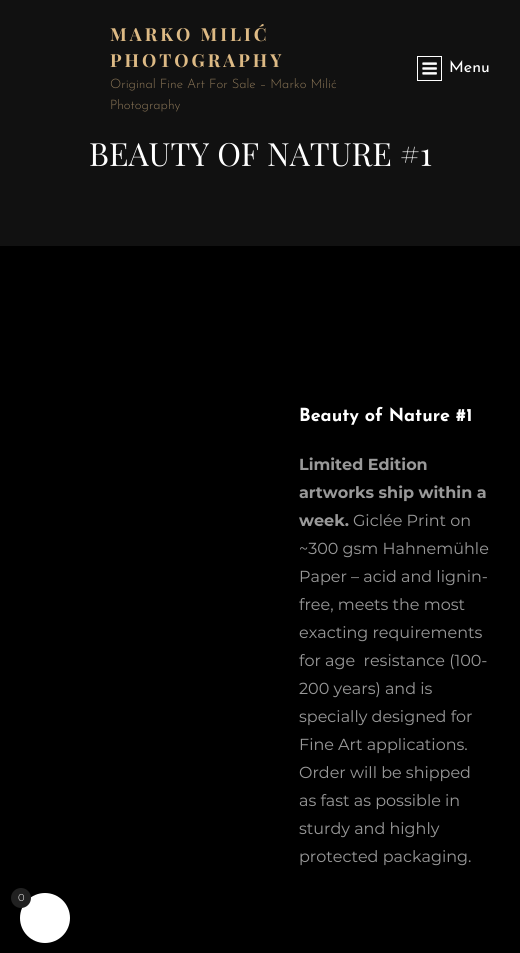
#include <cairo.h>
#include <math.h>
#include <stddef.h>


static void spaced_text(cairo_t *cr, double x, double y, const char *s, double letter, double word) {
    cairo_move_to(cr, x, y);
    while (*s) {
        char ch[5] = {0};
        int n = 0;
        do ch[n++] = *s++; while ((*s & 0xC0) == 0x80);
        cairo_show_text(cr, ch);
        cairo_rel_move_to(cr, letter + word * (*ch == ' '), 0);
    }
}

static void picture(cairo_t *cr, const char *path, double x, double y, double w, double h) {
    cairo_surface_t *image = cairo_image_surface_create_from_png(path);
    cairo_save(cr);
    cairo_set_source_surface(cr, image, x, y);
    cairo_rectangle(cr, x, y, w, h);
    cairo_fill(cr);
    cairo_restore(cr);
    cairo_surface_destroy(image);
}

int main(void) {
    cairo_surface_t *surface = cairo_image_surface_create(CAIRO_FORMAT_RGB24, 520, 953);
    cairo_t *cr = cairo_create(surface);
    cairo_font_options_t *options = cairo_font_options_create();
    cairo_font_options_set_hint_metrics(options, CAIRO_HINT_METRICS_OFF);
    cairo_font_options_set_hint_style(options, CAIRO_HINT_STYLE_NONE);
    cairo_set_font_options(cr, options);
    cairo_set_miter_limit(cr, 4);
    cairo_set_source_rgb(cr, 0, 0, 0);
    cairo_paint(cr);
    cairo_set_source_rgb(cr, 0.067, 0.067, 0.067);
    cairo_rectangle(cr, 0, 0, 520, 246);
    cairo_fill(cr);
    cairo_select_font_face(cr, "Playfair Display", CAIRO_FONT_SLANT_NORMAL, CAIRO_FONT_WEIGHT_BOLD);
    cairo_set_font_size(cr, 18);
    cairo_set_source_rgb(cr, 0.867, 0.729, 0.522);
    spaced_text(cr, 110, 41, "MARKO MILIĆ", 3, 0);
    spaced_text(cr, 110, 67, "PHOTOGRAPHY", 3, 0);
    cairo_select_font_face(cr, "Josefin Sans Light", CAIRO_FONT_SLANT_NORMAL, CAIRO_FONT_WEIGHT_NORMAL);
    cairo_set_font_size(cr, 13);
    cairo_set_source_rgb(cr, 0.545, 0.463, 0.341);
    cairo_move_to(cr, 110, 88);
    cairo_show_text(cr, "Original Fine Art For Sale – Marko Milić");
    cairo_move_to(cr, 110, 109);
    cairo_show_text(cr, "Photography");
    cairo_rectangle(cr, 417.5, 56.5, 24, 24);
    cairo_set_source_rgb(cr, 1, 1, 1);
    cairo_set_line_width(cr, 1);
    cairo_stroke(cr);
    picture(cr, "img1.png", 422, 62, 15, 13);
    cairo_select_font_face(cr, "Josefin Sans", CAIRO_FONT_SLANT_NORMAL, CAIRO_FONT_WEIGHT_NORMAL);
    cairo_set_font_size(cr, 16);
    cairo_move_to(cr, 449, 72);
    cairo_show_text(cr, "Menu");
    cairo_select_font_face(cr, "Playfair Display", CAIRO_FONT_SLANT_NORMAL, CAIRO_FONT_WEIGHT_NORMAL);
    cairo_set_font_size(cr, 32);
    cairo_move_to(cr, 89, 166);
    cairo_show_text(cr, "BEAUTY OF NATURE #1");
    cairo_select_font_face(cr, "Josefin Sans", CAIRO_FONT_SLANT_NORMAL, CAIRO_FONT_WEIGHT_BOLD);
    cairo_set_font_size(cr, 18);
    cairo_move_to(cr, 299, 421);
    cairo_show_text(cr, "Beauty of Nature #1");
    cairo_select_font_face(cr, "Montserrat", CAIRO_FONT_SLANT_NORMAL, CAIRO_FONT_WEIGHT_BOLD);
    cairo_set_font_size(cr, 16);
    cairo_set_source_rgb(cr, 0.6, 0.6, 0.6);
    cairo_move_to(cr, 299, 470);
    cairo_show_text(cr, "Limited Edition");
    cairo_move_to(cr, 299, 498);
    cairo_show_text(cr, "artworks ship within a");
    cairo_move_to(cr, 299, 526);
    cairo_show_text(cr, "week.");
    cairo_select_font_face(cr, "Montserrat", CAIRO_FONT_SLANT_NORMAL, CAIRO_FONT_WEIGHT_NORMAL);
    cairo_move_to(cr, 353, 526);
    cairo_show_text(cr, "Giclée Print on");
    cairo_move_to(cr, 299, 554);
    cairo_show_text(cr, "~300 gsm Hahnemühle");
    cairo_move_to(cr, 299, 582);
    cairo_show_text(cr, "Paper – acid and lignin-");
    cairo_move_to(cr, 299, 610);
    cairo_show_text(cr, "free, meets the most");
    cairo_move_to(cr, 299, 638);
    cairo_show_text(cr, "exacting requirements");
    cairo_move_to(cr, 299, 666);
    cairo_show_text(cr, "for age  resistance (100-");
    cairo_move_to(cr, 299, 694);
    cairo_show_text(cr, "200 years) and is");
    cairo_move_to(cr, 299, 722);
    cairo_show_text(cr, "specially designed for");
    cairo_move_to(cr, 299, 750);
    cairo_show_text(cr, "Fine Art applications.");
    cairo_move_to(cr, 299, 778);
    cairo_show_text(cr, "Order will be shipped");
    cairo_move_to(cr, 299, 806);
    cairo_show_text(cr, "as fast as possible in");
    cairo_move_to(cr, 299, 834);
    cairo_show_text(cr, "sturdy and highly");
    cairo_move_to(cr, 299, 862);
    cairo_show_text(cr, "protected packaging.");
    cairo_set_source_rgb(cr, 1, 1, 1);
    cairo_new_path(cr);
    cairo_arc(cr, 45, 918, 25, 0, 2 * M_PI);
    cairo_fill(cr);
    cairo_set_source_rgb(cr, 0.129, 0.129, 0.129);
    cairo_arc(cr, 21, 898, 10, 0, 2 * M_PI);
    cairo_fill(cr);
    cairo_select_font_face(cr, "Montserrat Light", CAIRO_FONT_SLANT_NORMAL, CAIRO_FONT_WEIGHT_NORMAL);
    cairo_set_font_size(cr, 10);
    cairo_set_source_rgb(cr, 1, 1, 1);
    cairo_move_to(cr, 18, 901);
    cairo_show_text(cr, "0");
    cairo_surface_write_to_png(surface, "page.png");
    cairo_font_options_destroy(options);
    cairo_destroy(cr);
    cairo_surface_destroy(surface);
    return 0;
}
